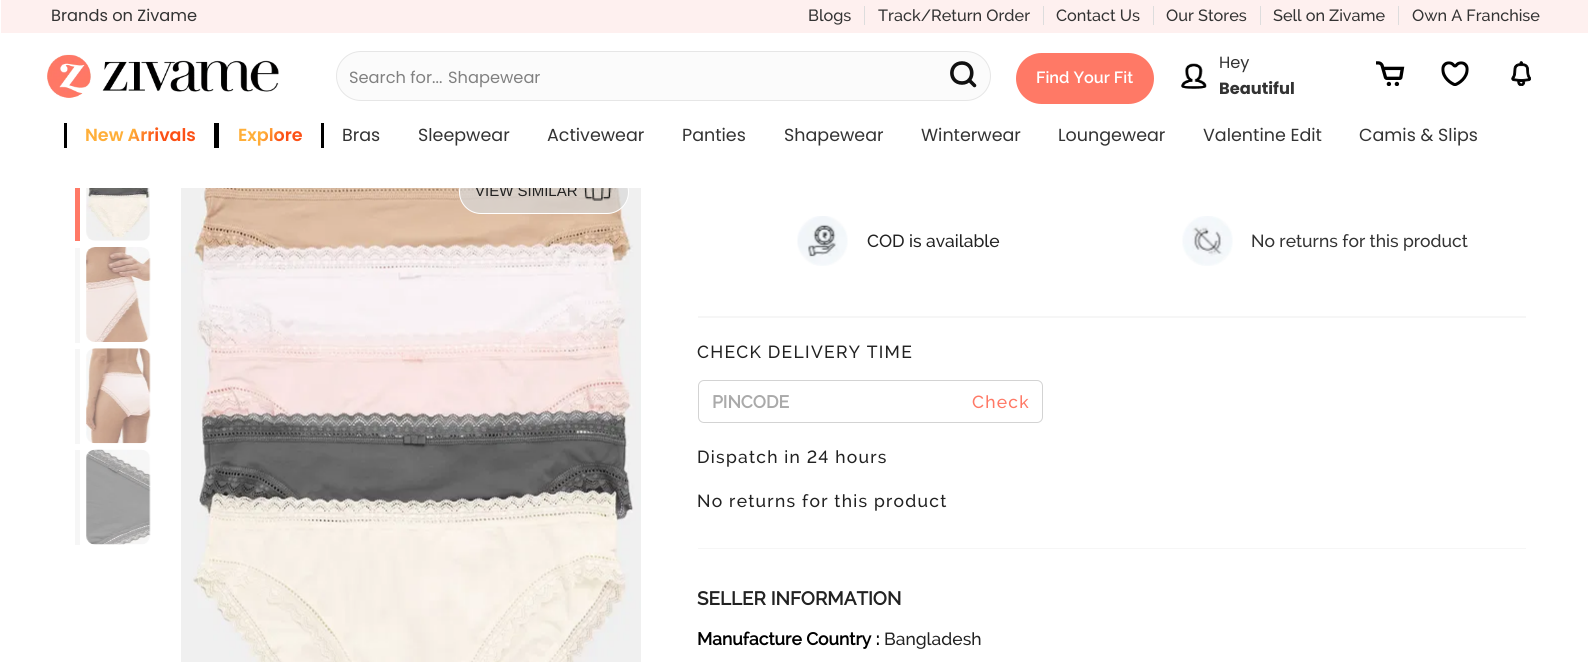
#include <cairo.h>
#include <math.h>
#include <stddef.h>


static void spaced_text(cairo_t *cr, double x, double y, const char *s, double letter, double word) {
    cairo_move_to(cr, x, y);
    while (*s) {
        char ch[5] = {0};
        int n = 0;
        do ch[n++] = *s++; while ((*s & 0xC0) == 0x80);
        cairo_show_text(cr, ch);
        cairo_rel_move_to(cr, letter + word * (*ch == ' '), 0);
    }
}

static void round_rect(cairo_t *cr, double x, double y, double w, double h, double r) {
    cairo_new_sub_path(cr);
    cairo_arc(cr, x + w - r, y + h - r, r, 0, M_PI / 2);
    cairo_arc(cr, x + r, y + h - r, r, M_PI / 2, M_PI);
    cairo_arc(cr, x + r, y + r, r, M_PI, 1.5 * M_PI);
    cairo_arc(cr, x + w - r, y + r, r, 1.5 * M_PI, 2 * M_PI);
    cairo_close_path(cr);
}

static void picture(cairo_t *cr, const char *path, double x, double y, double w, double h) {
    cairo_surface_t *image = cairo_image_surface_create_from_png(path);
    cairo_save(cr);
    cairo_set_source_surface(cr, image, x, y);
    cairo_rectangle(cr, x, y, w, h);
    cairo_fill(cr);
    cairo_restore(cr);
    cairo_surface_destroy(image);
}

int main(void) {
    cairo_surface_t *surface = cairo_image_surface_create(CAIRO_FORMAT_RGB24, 1588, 662);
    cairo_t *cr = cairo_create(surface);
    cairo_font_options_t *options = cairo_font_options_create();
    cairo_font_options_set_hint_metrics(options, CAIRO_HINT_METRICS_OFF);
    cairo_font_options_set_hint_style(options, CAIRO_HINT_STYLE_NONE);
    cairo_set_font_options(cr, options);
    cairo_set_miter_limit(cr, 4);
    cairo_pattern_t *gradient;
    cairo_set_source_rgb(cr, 1, 1, 1);
    cairo_paint(cr);
    picture(cr, "img11.png", 181, 188, 460, 474);
    cairo_set_source_rgba(cr, 0.847, 0.847, 0.847, 0.7);
    round_rect(cr, 459.5, 170.5, 169, 43, 21.5);
    cairo_fill_preserve(cr);
    cairo_set_source_rgb(cr, 1, 1, 1);
    cairo_set_line_width(cr, 1);
    cairo_stroke(cr);
    cairo_select_font_face(cr, "Liberation Sans", CAIRO_FONT_SLANT_NORMAL, CAIRO_FONT_WEIGHT_NORMAL);
    cairo_set_font_size(cr, 15);
    cairo_set_source_rgb(cr, 0.133, 0.133, 0.133);
    cairo_move_to(cr, 475, 196);
    cairo_show_text(cr, "VIEW SIMILAR");
    cairo_set_source_rgb(cr, 1, 1, 1);
    cairo_rectangle(cr, 459, 170, 170, 18);
    cairo_fill(cr);
    cairo_set_source_rgb(cr, 0.996, 0.941, 0.937);
    cairo_rectangle(cr, 1, 0, 1587, 33);
    cairo_fill(cr);
    cairo_select_font_face(cr, "Poppins", CAIRO_FONT_SLANT_NORMAL, CAIRO_FONT_WEIGHT_NORMAL);
    cairo_set_font_size(cr, 16.25);
    cairo_set_source_rgb(cr, 0.2, 0.2, 0.2);
    cairo_move_to(cr, 51, 21);
    cairo_show_text(cr, "Brands on Zivame");
    cairo_set_source_rgb(cr, 0.867, 0.867, 0.867);
    cairo_rectangle(cr, 864, 6, 1, 19);
    cairo_fill(cr);
    cairo_select_font_face(cr, "Raleway Medium", CAIRO_FONT_SLANT_NORMAL, CAIRO_FONT_WEIGHT_NORMAL);
    cairo_set_source_rgb(cr, 0.2, 0.2, 0.2);
    cairo_move_to(cr, 808, 21);
    cairo_show_text(cr, "Blogs");
    cairo_set_source_rgb(cr, 0.867, 0.867, 0.867);
    cairo_rectangle(cr, 1043, 6, 1, 19);
    cairo_fill(cr);
    cairo_set_source_rgb(cr, 0.2, 0.2, 0.2);
    cairo_move_to(cr, 878, 21);
    cairo_show_text(cr, "Track/Return Order");
    cairo_set_source_rgb(cr, 0.867, 0.867, 0.867);
    cairo_rectangle(cr, 1153, 6, 1, 19);
    cairo_fill(cr);
    cairo_set_source_rgb(cr, 0.2, 0.2, 0.2);
    cairo_move_to(cr, 1056, 21);
    cairo_show_text(cr, "Contact Us");
    cairo_set_source_rgb(cr, 0.867, 0.867, 0.867);
    cairo_rectangle(cr, 1260, 6, 1, 19);
    cairo_fill(cr);
    cairo_set_source_rgb(cr, 0.2, 0.2, 0.2);
    cairo_move_to(cr, 1166, 21);
    cairo_show_text(cr, "Our Stores");
    cairo_set_source_rgb(cr, 0.867, 0.867, 0.867);
    cairo_rectangle(cr, 1398, 6, 1, 19);
    cairo_fill(cr);
    cairo_set_source_rgb(cr, 0.2, 0.2, 0.2);
    cairo_move_to(cr, 1273, 21);
    cairo_show_text(cr, "Sell on Zivame");
    cairo_move_to(cr, 1412, 21);
    cairo_show_text(cr, "Own A Franchise");
    picture(cr, "img1.png", 47, 54, 232, 44);
    cairo_select_font_face(cr, "Poppins", CAIRO_FONT_SLANT_NORMAL, CAIRO_FONT_WEIGHT_NORMAL);
    cairo_set_source_rgb(cr, 0.039, 0.039, 0.039);
    cairo_move_to(cr, 349, 83);
    cairo_show_text(cr, "Search for...");
    cairo_move_to(cr, 448, 83);
    cairo_show_text(cr, "Shapewear");
    cairo_set_source_rgba(cr, 0.969, 0.969, 0.969, 0.5);
    round_rect(cr, 336.5, 51.5, 654, 49, 24.5);
    cairo_fill_preserve(cr);
    cairo_set_source_rgb(cr, 0.902, 0.902, 0.902);
    cairo_stroke(cr);
    cairo_new_path(cr);
    cairo_move_to(cr, 962, 83);
    cairo_curve_to(cr, 948.5, 83, 948.5, 63, 962, 63);
    cairo_curve_to(cr, 975, 63, 975, 83, 962, 83);
    cairo_close_path(cr);
    cairo_move_to(cr, 974.5, 85.5);
    cairo_line_to(cr, 969, 80);
    cairo_set_source_rgb(cr, 0.067, 0.067, 0.067);
    cairo_set_line_width(cr, 3.6);
    cairo_set_line_cap(cr, CAIRO_LINE_CAP_ROUND);
    cairo_set_line_join(cr, CAIRO_LINE_JOIN_ROUND);
    cairo_stroke(cr);
    cairo_set_source_rgb(cr, 1, 0.475, 0.4);
    round_rect(cr, 1016, 53, 138, 51, 25.5);
    cairo_fill(cr);
    cairo_select_font_face(cr, "Raleway SemiBold", CAIRO_FONT_SLANT_NORMAL, CAIRO_FONT_WEIGHT_NORMAL);
    cairo_set_source_rgb(cr, 1, 1, 1);
    cairo_move_to(cr, 1036, 83);
    cairo_show_text(cr, "Find Your Fit");
    picture(cr, "img2.png", 1181, 63, 26, 26);
    cairo_select_font_face(cr, "Poppins", CAIRO_FONT_SLANT_NORMAL, CAIRO_FONT_WEIGHT_NORMAL);
    cairo_set_source_rgb(cr, 0.2, 0.2, 0.2);
    cairo_move_to(cr, 1219, 68);
    cairo_show_text(cr, "Hey");
    cairo_select_font_face(cr, "Poppins", CAIRO_FONT_SLANT_NORMAL, CAIRO_FONT_WEIGHT_BOLD);
    cairo_move_to(cr, 1219, 94);
    cairo_show_text(cr, "Beautiful");
    picture(cr, "img3.png", 1376, 61, 29, 25);
    picture(cr, "img4.png", 1441, 61, 28, 25);
    picture(cr, "img5.png", 1511, 61, 20, 25);
    cairo_select_font_face(cr, "Poppins SemiBold", CAIRO_FONT_SLANT_NORMAL, CAIRO_FONT_WEIGHT_NORMAL);
    cairo_set_font_size(cr, 17.5);
    gradient = cairo_pattern_create_linear(203, 171, 77, 99);
    cairo_pattern_add_color_stop_rgba(gradient, 0.4, 0.988, 0.314, 0.082, 1);
    cairo_pattern_add_color_stop_rgba(gradient, 0.56, 1, 0.686, 0.224, 1);
    cairo_set_source(cr, gradient);
    cairo_pattern_destroy(gradient);
    cairo_move_to(cr, 85, 141);
    cairo_show_text(cr, "New Arrivals");
    cairo_set_source_rgb(cr, 0, 0, 0);
    cairo_rectangle(cr, 214, 123, 5, 25);
    cairo_fill(cr);
    cairo_rectangle(cr, 64, 123, 3, 25);
    cairo_fill(cr);
    gradient = cairo_pattern_create_linear(316, 161, 225, 109);
    cairo_pattern_add_color_stop_rgba(gradient, 0.4, 0.988, 0.314, 0.082, 1);
    cairo_pattern_add_color_stop_rgba(gradient, 0.56, 1, 0.686, 0.224, 1);
    cairo_set_source(cr, gradient);
    cairo_pattern_destroy(gradient);
    cairo_move_to(cr, 238, 141);
    cairo_show_text(cr, "Explore");
    cairo_set_source_rgb(cr, 0, 0, 0);
    cairo_rectangle(cr, 321, 123, 3, 25);
    cairo_fill(cr);
    cairo_select_font_face(cr, "Poppins", CAIRO_FONT_SLANT_NORMAL, CAIRO_FONT_WEIGHT_NORMAL);
    cairo_set_source_rgb(cr, 0.2, 0.2, 0.2);
    cairo_move_to(cr, 342, 141);
    cairo_show_text(cr, "Bras");
    cairo_move_to(cr, 418, 141);
    cairo_show_text(cr, "Sleepwear");
    cairo_move_to(cr, 547, 141);
    cairo_show_text(cr, "Activewear");
    cairo_move_to(cr, 682, 141);
    cairo_show_text(cr, "Panties");
    cairo_move_to(cr, 784, 141);
    cairo_show_text(cr, "Shapewear");
    cairo_move_to(cr, 921, 141);
    cairo_show_text(cr, "Winterwear");
    cairo_move_to(cr, 1058, 141);
    cairo_show_text(cr, "Loungewear");
    cairo_move_to(cr, 1203, 141);
    cairo_show_text(cr, "Valentine Edit");
    cairo_move_to(cr, 1359, 141);
    cairo_show_text(cr, "Camis & Slips");
    cairo_set_source_rgb(cr, 1, 0.475, 0.4);
    cairo_rectangle(cr, 75, 188, 5, 53);
    cairo_fill(cr);
    picture(cr, "img6.png", 86, 188, 64, 53);
    cairo_set_source_rgb(cr, 0.961, 0.961, 0.961);
    cairo_rectangle(cr, 75, 248, 5, 95);
    cairo_fill(cr);
    picture(cr, "img7.png", 86, 247, 65, 95);
    cairo_rectangle(cr, 75, 349, 5, 95);
    cairo_fill(cr);
    picture(cr, "img8.png", 86, 348, 65, 96);
    cairo_rectangle(cr, 75, 450, 5, 95);
    cairo_fill(cr);
    picture(cr, "img9.png", 86, 449, 65, 96);
    picture(cr, "img10.png", 583, 188, 29, 13);
    picture(cr, "img12.png", 797, 216, 51, 50);
    cairo_select_font_face(cr, "Raleway Medium", CAIRO_FONT_SLANT_NORMAL, CAIRO_FONT_WEIGHT_NORMAL);
    cairo_set_source_rgb(cr, 0.133, 0.133, 0.133);
    cairo_move_to(cr, 867, 247);
    cairo_show_text(cr, "COD is available");
    picture(cr, "img13.png", 1182, 216, 51, 50);
    cairo_set_source_rgb(cr, 0.2, 0.2, 0.2);
    cairo_move_to(cr, 1251, 247);
    cairo_show_text(cr, "No returns for this product");
    cairo_set_source_rgb(cr, 0.961, 0.961, 0.961);
    cairo_rectangle(cr, 698, 316, 828, 2);
    cairo_fill(cr);
    cairo_set_source_rgb(cr, 0.133, 0.133, 0.133);
    spaced_text(cr, 697, 358, "CHECK DELIVERY TIME", 1.25, 0);
    round_rect(cr, 698.5, 380.5, 344, 42, 5.5);
    cairo_set_source_rgb(cr, 0.827, 0.827, 0.827);
    cairo_set_line_width(cr, 1);
    cairo_set_line_cap(cr, CAIRO_LINE_CAP_BUTT);
    cairo_set_line_join(cr, CAIRO_LINE_JOIN_MITER);
    cairo_stroke(cr);
    cairo_select_font_face(cr, "Raleway", CAIRO_FONT_SLANT_NORMAL, CAIRO_FONT_WEIGHT_BOLD);
    cairo_set_source_rgb(cr, 0.667, 0.667, 0.667);
    cairo_move_to(cr, 712, 408);
    cairo_show_text(cr, "PINCODE");
    cairo_select_font_face(cr, "Raleway Medium", CAIRO_FONT_SLANT_NORMAL, CAIRO_FONT_WEIGHT_NORMAL);
    cairo_set_source_rgb(cr, 1, 0.475, 0.4);
    spaced_text(cr, 972, 408, "Check", 1.25, 0);
    cairo_set_source_rgb(cr, 0.133, 0.133, 0.133);
    spaced_text(cr, 697, 463, "Dispatch in 24 hours", 1.25, 0);
    spaced_text(cr, 697, 507, "No returns for this product", 1.25, 0);
    cairo_set_source_rgb(cr, 0.961, 0.961, 0.961);
    cairo_rectangle(cr, 698, 548, 828, 1);
    cairo_fill(cr);
    cairo_select_font_face(cr, "Raleway", CAIRO_FONT_SLANT_NORMAL, CAIRO_FONT_WEIGHT_BOLD);
    cairo_set_font_size(cr, 18.75);
    cairo_set_source_rgb(cr, 0.133, 0.133, 0.133);
    cairo_move_to(cr, 697, 605);
    cairo_show_text(cr, "SELLER INFORMATION");
    cairo_set_font_size(cr, 17.5);
    cairo_set_source_rgb(cr, 0, 0, 0);
    cairo_move_to(cr, 697, 645);
    cairo_show_text(cr, "Manufacture Country :");
    cairo_select_font_face(cr, "Raleway Medium", CAIRO_FONT_SLANT_NORMAL, CAIRO_FONT_WEIGHT_NORMAL);
    cairo_set_source_rgb(cr, 0.133, 0.133, 0.133);
    cairo_move_to(cr, 884, 645);
    cairo_show_text(cr, "Bangladesh");
    cairo_surface_write_to_png(surface, "page.png");
    cairo_font_options_destroy(options);
    cairo_destroy(cr);
    cairo_surface_destroy(surface);
    return 0;
}
